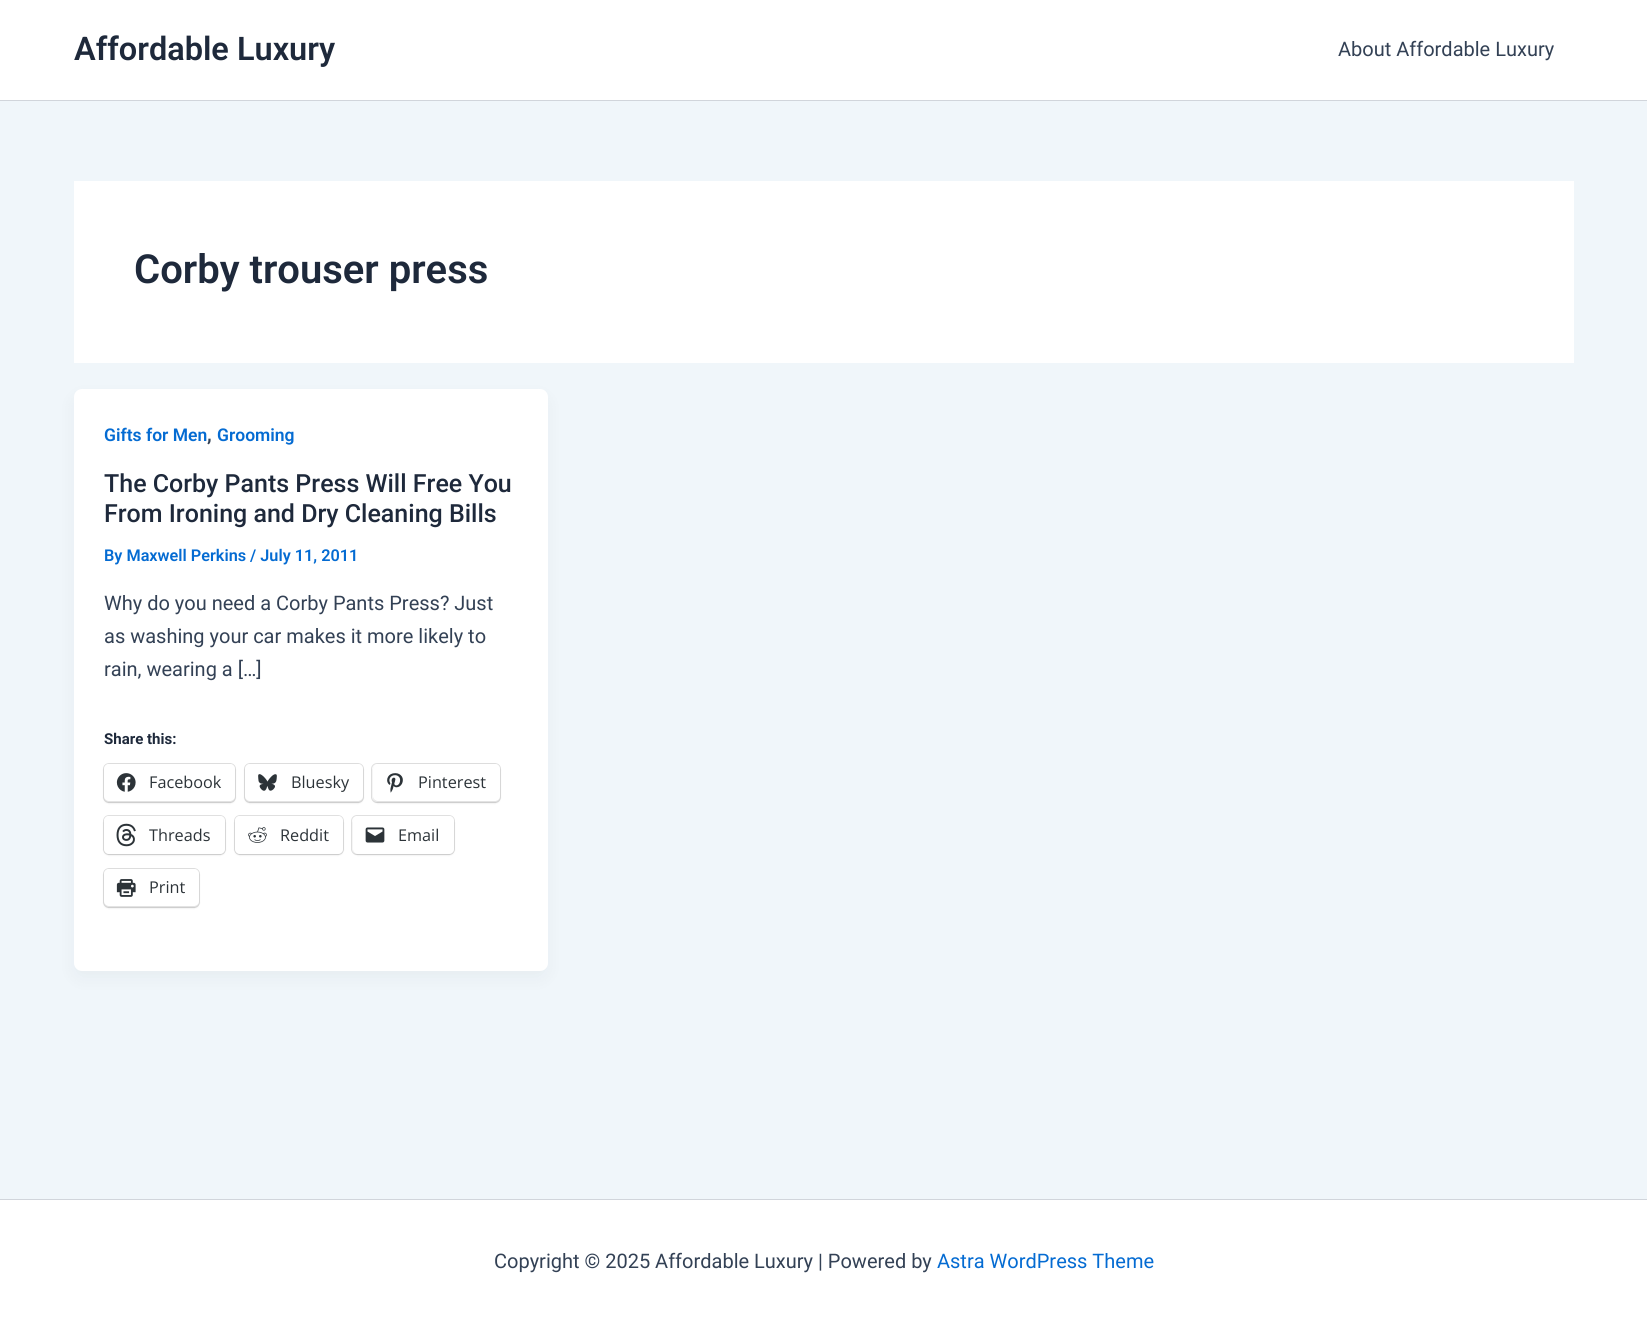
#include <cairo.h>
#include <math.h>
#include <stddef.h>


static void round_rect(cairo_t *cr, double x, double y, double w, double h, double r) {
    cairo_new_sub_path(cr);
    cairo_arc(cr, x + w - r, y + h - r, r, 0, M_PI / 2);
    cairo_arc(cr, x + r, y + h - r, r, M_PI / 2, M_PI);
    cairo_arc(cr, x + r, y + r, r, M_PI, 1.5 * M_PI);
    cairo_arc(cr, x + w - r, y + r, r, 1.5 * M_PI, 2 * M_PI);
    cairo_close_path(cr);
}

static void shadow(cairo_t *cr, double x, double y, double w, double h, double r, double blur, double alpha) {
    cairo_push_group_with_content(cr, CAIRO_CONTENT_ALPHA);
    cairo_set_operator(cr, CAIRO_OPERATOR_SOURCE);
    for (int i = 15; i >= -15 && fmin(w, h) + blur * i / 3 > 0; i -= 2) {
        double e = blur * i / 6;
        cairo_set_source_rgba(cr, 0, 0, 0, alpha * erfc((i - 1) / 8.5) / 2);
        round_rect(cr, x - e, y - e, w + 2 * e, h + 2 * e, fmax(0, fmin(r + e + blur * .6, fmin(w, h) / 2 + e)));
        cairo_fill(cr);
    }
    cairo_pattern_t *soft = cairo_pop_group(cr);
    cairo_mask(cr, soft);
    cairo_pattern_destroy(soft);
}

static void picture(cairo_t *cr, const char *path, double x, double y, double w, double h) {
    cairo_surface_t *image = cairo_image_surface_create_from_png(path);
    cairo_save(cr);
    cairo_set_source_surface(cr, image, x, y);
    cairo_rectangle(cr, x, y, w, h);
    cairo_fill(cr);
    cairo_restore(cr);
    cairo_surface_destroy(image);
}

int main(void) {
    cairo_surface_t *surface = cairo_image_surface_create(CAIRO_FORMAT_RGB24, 1647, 1324);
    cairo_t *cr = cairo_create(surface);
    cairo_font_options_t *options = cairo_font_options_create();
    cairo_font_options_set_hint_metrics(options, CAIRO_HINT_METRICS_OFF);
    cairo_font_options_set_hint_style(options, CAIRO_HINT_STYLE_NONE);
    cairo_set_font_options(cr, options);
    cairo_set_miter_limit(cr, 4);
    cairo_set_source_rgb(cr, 0.941, 0.961, 0.98);
    cairo_paint(cr);
    cairo_set_source_rgb(cr, 1, 1, 1);
    cairo_rectangle(cr, 0, 0, 1647, 100);
    cairo_fill(cr);
    cairo_set_source_rgb(cr, 0.82, 0.835, 0.859);
    cairo_rectangle(cr, 0, 100, 1647, 1);
    cairo_fill(cr);
    cairo_select_font_face(cr, "Roboto SemiBold", CAIRO_FONT_SLANT_NORMAL, CAIRO_FONT_WEIGHT_NORMAL);
    cairo_set_font_size(cr, 32.5);
    cairo_set_source_rgb(cr, 0.118, 0.161, 0.231);
    cairo_move_to(cr, 74, 60);
    cairo_show_text(cr, "Affordable Luxury");
    cairo_select_font_face(cr, "Roboto", CAIRO_FONT_SLANT_NORMAL, CAIRO_FONT_WEIGHT_NORMAL);
    cairo_set_font_size(cr, 20);
    cairo_set_source_rgb(cr, 0.2, 0.255, 0.333);
    cairo_move_to(cr, 1338, 56);
    cairo_show_text(cr, "About Affordable Luxury");
    cairo_set_source_rgb(cr, 1, 1, 1);
    cairo_rectangle(cr, 74, 181, 1500, 182);
    cairo_fill(cr);
    cairo_select_font_face(cr, "Roboto SemiBold", CAIRO_FONT_SLANT_NORMAL, CAIRO_FONT_WEIGHT_NORMAL);
    cairo_set_font_size(cr, 40);
    cairo_set_source_rgb(cr, 0.118, 0.161, 0.231);
    cairo_move_to(cr, 134, 283);
    cairo_show_text(cr, "Corby trouser press");
    cairo_set_source_rgb(cr, 0.063, 0.094, 0.157);
    shadow(cr, 76, 399, 469, 577, 5, 9.5, 0.05);
    cairo_set_source_rgb(cr, 1, 1, 1);
    round_rect(cr, 74, 389, 474, 582, 8);
    cairo_fill(cr);
    cairo_set_font_size(cr, 17.5);
    cairo_set_source_rgb(cr, 0.016, 0.42, 0.824);
    cairo_move_to(cr, 104, 441);
    cairo_show_text(cr, "Gifts for Men");
    cairo_set_font_size(cr, 20);
    cairo_set_source_rgb(cr, 0.2, 0.255, 0.333);
    cairo_move_to(cr, 207, 441);
    cairo_show_text(cr, ",");
    cairo_set_font_size(cr, 17.5);
    cairo_set_source_rgb(cr, 0.016, 0.42, 0.824);
    cairo_move_to(cr, 217, 441);
    cairo_show_text(cr, "Grooming");
    cairo_select_font_face(cr, "Roboto Medium", CAIRO_FONT_SLANT_NORMAL, CAIRO_FONT_WEIGHT_NORMAL);
    cairo_set_font_size(cr, 25);
    cairo_set_source_rgb(cr, 0.118, 0.161, 0.231);
    cairo_move_to(cr, 104, 492);
    cairo_show_text(cr, "The Corby Pants Press Will Free You");
    cairo_move_to(cr, 104, 522);
    cairo_show_text(cr, "From Ironing and Dry Cleaning Bills");
    cairo_select_font_face(cr, "Roboto SemiBold", CAIRO_FONT_SLANT_NORMAL, CAIRO_FONT_WEIGHT_NORMAL);
    cairo_set_font_size(cr, 16.25);
    cairo_set_source_rgb(cr, 0.016, 0.42, 0.824);
    cairo_move_to(cr, 104, 561);
    cairo_show_text(cr, "By Maxwell Perkins / July 11, 2011");
    cairo_select_font_face(cr, "Roboto", CAIRO_FONT_SLANT_NORMAL, CAIRO_FONT_WEIGHT_NORMAL);
    cairo_set_font_size(cr, 20);
    cairo_set_source_rgb(cr, 0.2, 0.255, 0.333);
    cairo_move_to(cr, 104, 610);
    cairo_show_text(cr, "Why do you need a Corby Pants Press? Just");
    cairo_move_to(cr, 104, 643);
    cairo_show_text(cr, "as washing your car makes it more likely to");
    cairo_move_to(cr, 104, 676);
    cairo_show_text(cr, "rain, wearing a […]");
    cairo_select_font_face(cr, "Roboto", CAIRO_FONT_SLANT_NORMAL, CAIRO_FONT_WEIGHT_BOLD);
    cairo_set_font_size(cr, 15);
    cairo_set_source_rgb(cr, 0.118, 0.161, 0.231);
    cairo_move_to(cr, 104, 744);
    cairo_show_text(cr, "Share this:");
    round_rect(cr, 103.5, 763.5, 132, 39, 5.5);
    cairo_set_source_rgb(cr, 0.878, 0.878, 0.878);
    cairo_set_line_width(cr, 1);
    cairo_stroke(cr);
    cairo_set_source_rgb(cr, 0, 0, 0);
    shadow(cr, 104, 765, 131, 38, 5, 1, 0.12);
    cairo_set_source_rgb(cr, 1, 1, 1);
    round_rect(cr, 104, 764, 131, 37, 5);
    cairo_fill(cr);
    picture(cr, "img1.png", 116, 773, 20, 19);
    cairo_select_font_face(cr, "Open Sans", CAIRO_FONT_SLANT_NORMAL, CAIRO_FONT_WEIGHT_NORMAL);
    cairo_set_font_size(cr, 16.25);
    cairo_set_source_rgb(cr, 0.173, 0.2, 0.22);
    cairo_move_to(cr, 149, 788);
    cairo_show_text(cr, "Facebook");
    round_rect(cr, 244.5, 763.5, 119, 39, 5.5);
    cairo_set_source_rgb(cr, 0.878, 0.878, 0.878);
    cairo_stroke(cr);
    cairo_set_source_rgb(cr, 0, 0, 0);
    shadow(cr, 245, 765, 118, 38, 5, 1, 0.12);
    cairo_set_source_rgb(cr, 1, 1, 1);
    round_rect(cr, 245, 764, 118, 37, 5);
    cairo_fill(cr);
    picture(cr, "img2.png", 258, 774, 19, 17);
    cairo_set_source_rgb(cr, 0.173, 0.2, 0.22);
    cairo_move_to(cr, 291, 788);
    cairo_show_text(cr, "Bluesky");
    round_rect(cr, 371.5, 763.5, 129, 39, 5.5);
    cairo_set_source_rgb(cr, 0.878, 0.878, 0.878);
    cairo_stroke(cr);
    cairo_set_source_rgb(cr, 0, 0, 0);
    shadow(cr, 373, 765, 127, 38, 5, 1, 0.12);
    cairo_set_source_rgb(cr, 1, 1, 1);
    round_rect(cr, 373, 764, 127, 37, 5);
    cairo_fill(cr);
    picture(cr, "img3.png", 387, 773, 16, 20);
    cairo_set_source_rgb(cr, 0.173, 0.2, 0.22);
    cairo_move_to(cr, 418, 788);
    cairo_show_text(cr, "Pinterest");
    round_rect(cr, 103.5, 815.5, 122, 39, 5.5);
    cairo_set_source_rgb(cr, 0.878, 0.878, 0.878);
    cairo_stroke(cr);
    cairo_set_source_rgb(cr, 0, 0, 0);
    shadow(cr, 104, 818, 121, 37, 5, 1, 0.12);
    cairo_set_source_rgb(cr, 1, 1, 1);
    round_rect(cr, 104, 816, 121, 38, 5);
    cairo_fill(cr);
    picture(cr, "img4.png", 116, 823, 20, 24);
    cairo_set_source_rgb(cr, 0.173, 0.2, 0.22);
    cairo_move_to(cr, 149, 841);
    cairo_show_text(cr, "Threads");
    round_rect(cr, 234.5, 815.5, 109, 39, 5.5);
    cairo_set_source_rgb(cr, 0.878, 0.878, 0.878);
    cairo_stroke(cr);
    cairo_set_source_rgb(cr, 0, 0, 0);
    shadow(cr, 235, 818, 108, 37, 5, 1, 0.12);
    cairo_set_source_rgb(cr, 1, 1, 1);
    round_rect(cr, 235, 816, 108, 38, 5);
    cairo_fill(cr);
    picture(cr, "img5.png", 248, 827, 19, 16);
    cairo_set_source_rgb(cr, 0.173, 0.2, 0.22);
    cairo_move_to(cr, 280, 841);
    cairo_show_text(cr, "Reddit");
    round_rect(cr, 351.5, 815.5, 103, 39, 5.5);
    cairo_set_source_rgb(cr, 0.878, 0.878, 0.878);
    cairo_stroke(cr);
    cairo_set_source_rgb(cr, 0, 0, 0);
    shadow(cr, 353, 818, 101, 37, 5, 1, 0.12);
    cairo_set_source_rgb(cr, 1, 1, 1);
    round_rect(cr, 353, 816, 101, 38, 5);
    cairo_fill(cr);
    picture(cr, "img6.png", 365, 827, 20, 16);
    cairo_set_source_rgb(cr, 0.173, 0.2, 0.22);
    cairo_move_to(cr, 398, 841);
    cairo_show_text(cr, "Email");
    round_rect(cr, 103.5, 868.5, 96, 39, 5.5);
    cairo_set_source_rgb(cr, 0.878, 0.878, 0.878);
    cairo_stroke(cr);
    cairo_set_source_rgb(cr, 0, 0, 0);
    shadow(cr, 104, 870, 95, 38, 5, 1, 0.12);
    cairo_set_source_rgb(cr, 1, 1, 1);
    round_rect(cr, 104, 869, 95, 37, 5);
    cairo_fill(cr);
    picture(cr, "img7.png", 116, 879, 20, 18);
    cairo_set_source_rgb(cr, 0.173, 0.2, 0.22);
    cairo_move_to(cr, 149, 893);
    cairo_show_text(cr, "Print");
    cairo_set_source_rgb(cr, 1, 1, 1);
    cairo_rectangle(cr, 0, 1200, 1647, 124);
    cairo_fill(cr);
    cairo_set_source_rgb(cr, 0.82, 0.835, 0.859);
    cairo_rectangle(cr, 0, 1199, 1647, 1);
    cairo_fill(cr);
    cairo_select_font_face(cr, "Roboto", CAIRO_FONT_SLANT_NORMAL, CAIRO_FONT_WEIGHT_NORMAL);
    cairo_set_font_size(cr, 20);
    cairo_set_source_rgb(cr, 0.2, 0.255, 0.333);
    cairo_move_to(cr, 494, 1268);
    cairo_show_text(cr, "Copyright © 2025 Affordable Luxury | Powered by");
    cairo_set_source_rgb(cr, 0.016, 0.42, 0.824);
    cairo_move_to(cr, 937, 1268);
    cairo_show_text(cr, "Astra WordPress Theme");
    cairo_surface_write_to_png(surface, "page.png");
    cairo_font_options_destroy(options);
    cairo_destroy(cr);
    cairo_surface_destroy(surface);
    return 0;
}
